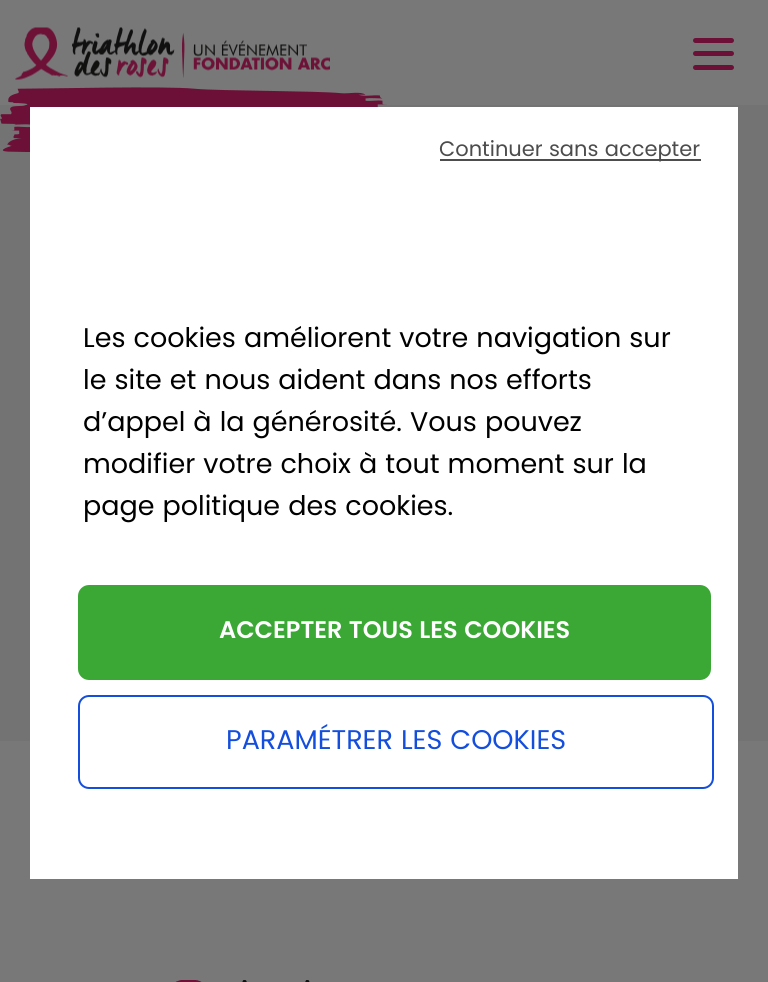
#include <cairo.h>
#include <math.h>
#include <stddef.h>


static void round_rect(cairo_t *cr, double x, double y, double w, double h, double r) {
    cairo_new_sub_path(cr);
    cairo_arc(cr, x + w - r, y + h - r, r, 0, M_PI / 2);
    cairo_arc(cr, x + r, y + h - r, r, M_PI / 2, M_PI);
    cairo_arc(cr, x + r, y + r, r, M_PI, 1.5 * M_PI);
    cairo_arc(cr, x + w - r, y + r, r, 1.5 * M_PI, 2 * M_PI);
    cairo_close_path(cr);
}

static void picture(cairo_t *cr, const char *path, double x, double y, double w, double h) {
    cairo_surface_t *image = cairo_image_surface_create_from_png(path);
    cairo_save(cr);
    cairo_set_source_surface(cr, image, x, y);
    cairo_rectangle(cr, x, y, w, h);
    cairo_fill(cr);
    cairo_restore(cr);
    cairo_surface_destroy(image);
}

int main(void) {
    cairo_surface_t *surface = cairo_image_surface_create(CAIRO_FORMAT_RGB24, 768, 982);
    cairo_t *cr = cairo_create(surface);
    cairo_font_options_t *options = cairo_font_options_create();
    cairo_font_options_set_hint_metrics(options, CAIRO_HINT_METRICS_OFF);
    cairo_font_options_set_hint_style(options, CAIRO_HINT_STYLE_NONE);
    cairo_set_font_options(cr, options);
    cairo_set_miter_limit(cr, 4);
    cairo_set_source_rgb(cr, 0.471, 0.471, 0.471);
    cairo_paint(cr);
    picture(cr, "img1.png", 15, 27, 315, 53);
    cairo_set_source_rgb(cr, 0.424, 0.063, 0.216);
    round_rect(cr, 693, 38, 41, 5, 2.5);
    cairo_fill(cr);
    round_rect(cr, 693, 51, 41, 5, 2.5);
    cairo_fill(cr);
    round_rect(cr, 693, 65, 41, 5, 2.5);
    cairo_fill(cr);
    cairo_set_source_rgb(cr, 0.451, 0.451, 0.451);
    cairo_rectangle(cr, 0, 105, 768, 636);
    cairo_fill(cr);
    picture(cr, "img2.png", 0, 87, 387, 65);
    picture(cr, "img3.png", 175, 980, 135, 2);
    cairo_set_source_rgb(cr, 1, 1, 1);
    cairo_rectangle(cr, 30, 107, 708, 772);
    cairo_fill(cr);
    cairo_set_source_rgb(cr, 0.302, 0.302, 0.302);
    cairo_rectangle(cr, 440, 159, 261, 2);
    cairo_fill(cr);
    cairo_select_font_face(cr, "Poppins", CAIRO_FONT_SLANT_NORMAL, CAIRO_FONT_WEIGHT_NORMAL);
    cairo_set_font_size(cr, 21);
    cairo_set_source_rgb(cr, 0.298, 0.298, 0.298);
    cairo_move_to(cr, 439, 156);
    cairo_show_text(cr, "Continuer sans accepter");
    cairo_set_font_size(cr, 27);
    cairo_set_source_rgb(cr, 0, 0, 0);
    cairo_move_to(cr, 83, 347);
    cairo_show_text(cr, "Les cookies améliorent votre navigation sur");
    cairo_move_to(cr, 83, 389);
    cairo_show_text(cr, "le site et nous aident dans nos efforts");
    cairo_move_to(cr, 83, 431);
    cairo_show_text(cr, "d’appel à la générosité. Vous pouvez");
    cairo_move_to(cr, 83, 473);
    cairo_show_text(cr, "modifier votre choix à tout moment sur la");
    cairo_move_to(cr, 83, 515);
    cairo_show_text(cr, "page politique des cookies.");
    cairo_set_source_rgb(cr, 0.231, 0.659, 0.212);
    round_rect(cr, 78, 585, 633, 95, 11);
    cairo_fill(cr);
    cairo_select_font_face(cr, "Poppins SemiBold", CAIRO_FONT_SLANT_NORMAL, CAIRO_FONT_WEIGHT_NORMAL);
    cairo_set_font_size(cr, 24);
    cairo_set_source_rgb(cr, 1, 1, 1);
    cairo_move_to(cr, 219, 638);
    cairo_show_text(cr, "ACCEPTER TOUS LES COOKIES");
    round_rect(cr, 79, 696, 634, 92, 10);
    cairo_set_source_rgb(cr, 0.082, 0.306, 0.863);
    cairo_stroke(cr);
    cairo_select_font_face(cr, "Poppins", CAIRO_FONT_SLANT_NORMAL, CAIRO_FONT_WEIGHT_NORMAL);
    cairo_set_font_size(cr, 27);
    cairo_move_to(cr, 226, 749);
    cairo_show_text(cr, "PARAMÉTRER LES COOKIES");
    cairo_surface_write_to_png(surface, "page.png");
    cairo_font_options_destroy(options);
    cairo_destroy(cr);
    cairo_surface_destroy(surface);
    return 0;
}
